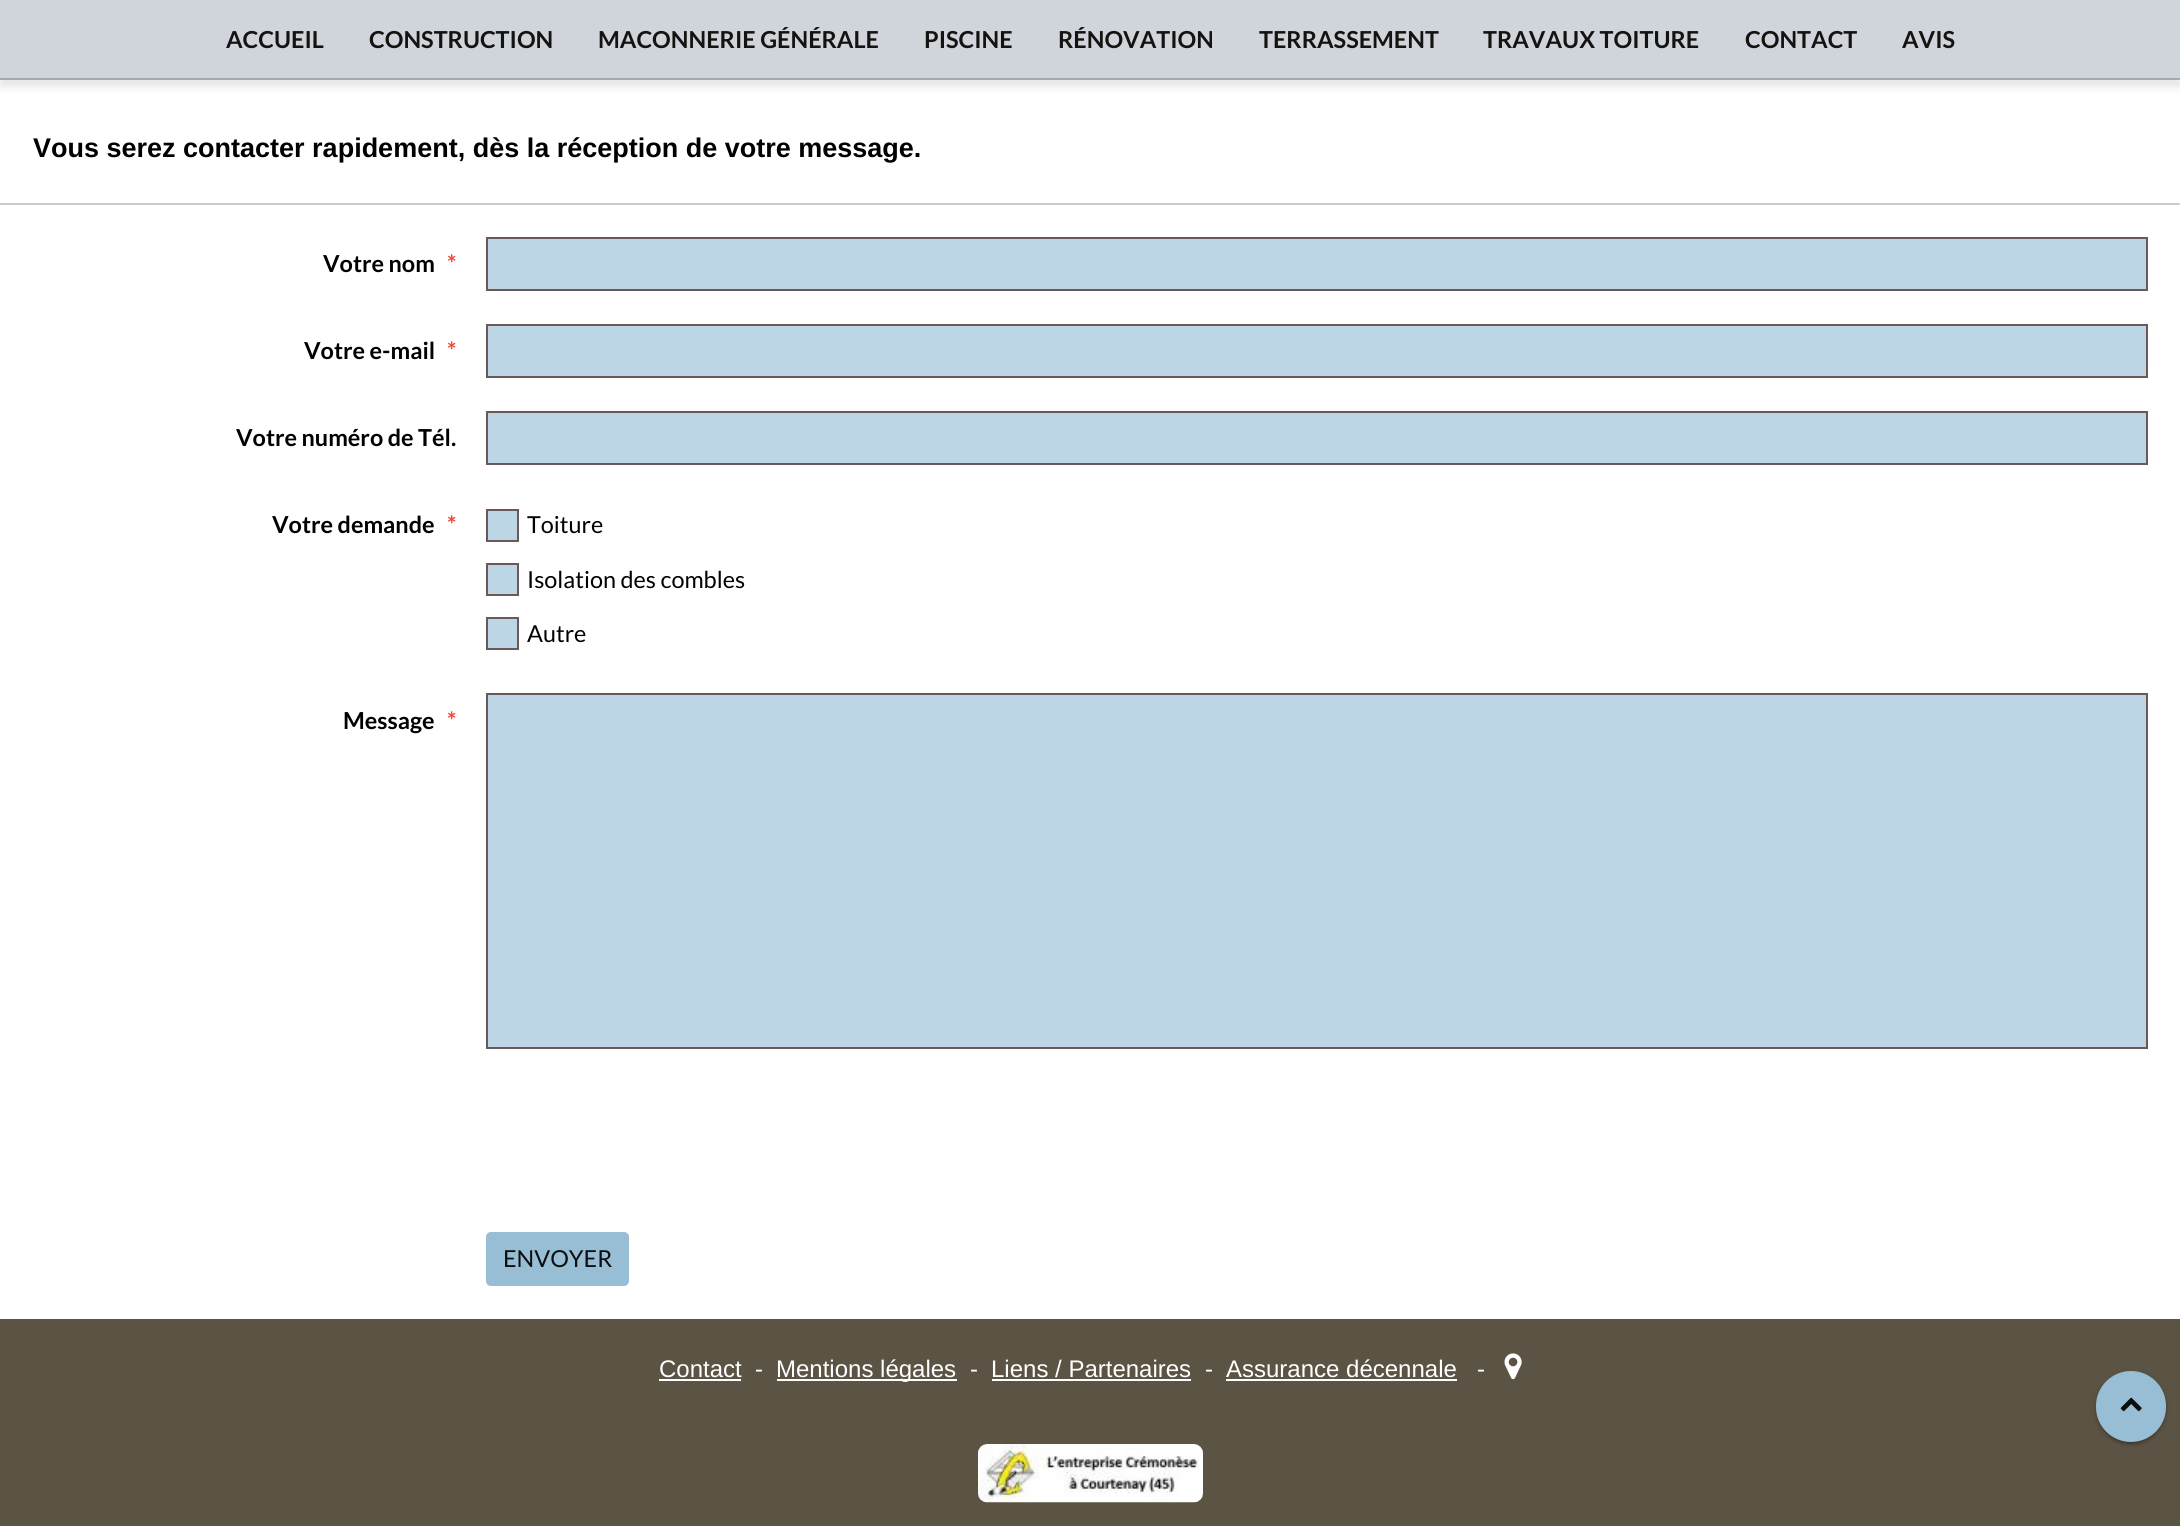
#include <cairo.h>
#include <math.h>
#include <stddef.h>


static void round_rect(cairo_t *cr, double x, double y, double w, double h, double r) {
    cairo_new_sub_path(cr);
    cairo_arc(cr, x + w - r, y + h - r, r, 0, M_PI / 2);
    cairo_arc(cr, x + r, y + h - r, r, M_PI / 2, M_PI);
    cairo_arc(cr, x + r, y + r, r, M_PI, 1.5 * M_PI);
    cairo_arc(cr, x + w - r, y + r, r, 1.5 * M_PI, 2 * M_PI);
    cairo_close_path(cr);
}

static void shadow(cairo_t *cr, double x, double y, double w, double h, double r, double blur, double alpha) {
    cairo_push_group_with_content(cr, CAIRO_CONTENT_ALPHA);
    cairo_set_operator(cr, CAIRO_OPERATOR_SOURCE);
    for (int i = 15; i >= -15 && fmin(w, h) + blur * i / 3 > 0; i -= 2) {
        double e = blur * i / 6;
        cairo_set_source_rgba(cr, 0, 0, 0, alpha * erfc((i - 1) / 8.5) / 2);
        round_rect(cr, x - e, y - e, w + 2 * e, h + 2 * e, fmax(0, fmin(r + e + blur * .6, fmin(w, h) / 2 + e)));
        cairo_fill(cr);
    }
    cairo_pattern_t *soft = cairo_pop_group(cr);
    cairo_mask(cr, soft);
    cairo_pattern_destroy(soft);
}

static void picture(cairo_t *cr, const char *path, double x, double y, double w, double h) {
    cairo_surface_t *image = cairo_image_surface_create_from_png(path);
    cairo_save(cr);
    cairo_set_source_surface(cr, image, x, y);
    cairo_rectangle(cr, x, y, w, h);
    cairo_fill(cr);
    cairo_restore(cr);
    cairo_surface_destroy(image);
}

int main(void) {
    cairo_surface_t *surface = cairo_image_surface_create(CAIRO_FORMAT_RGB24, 2180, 1526);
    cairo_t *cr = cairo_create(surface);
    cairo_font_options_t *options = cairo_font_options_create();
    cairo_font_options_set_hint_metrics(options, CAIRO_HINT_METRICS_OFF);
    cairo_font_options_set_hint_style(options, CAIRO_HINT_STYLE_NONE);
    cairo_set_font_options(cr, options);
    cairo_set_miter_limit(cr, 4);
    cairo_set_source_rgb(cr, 1, 1, 1);
    cairo_paint(cr);
    cairo_set_source_rgb(cr, 0, 0, 0);
    shadow(cr, 0, 8, 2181, 79, 0, 4, 0.1);
    cairo_set_source_rgb(cr, 0.812, 0.835, 0.855);
    cairo_rectangle(cr, 0, 0, 2180, 78);
    cairo_fill(cr);
    cairo_set_source_rgb(cr, 0.651, 0.667, 0.682);
    cairo_rectangle(cr, 0, 78, 2180, 2);
    cairo_fill(cr);
    cairo_select_font_face(cr, "Lato", CAIRO_FONT_SLANT_NORMAL, CAIRO_FONT_WEIGHT_BOLD);
    cairo_set_font_size(cr, 23.4);
    cairo_set_source_rgb(cr, 0.082, 0.078, 0.071);
    cairo_move_to(cr, 226, 48);
    cairo_show_text(cr, "ACCUEIL");
    cairo_move_to(cr, 369, 48);
    cairo_show_text(cr, "CONSTRUCTION");
    cairo_move_to(cr, 598, 48);
    cairo_show_text(cr, "MACONNERIE GÉNÉRALE");
    cairo_move_to(cr, 924, 48);
    cairo_show_text(cr, "PISCINE");
    cairo_move_to(cr, 1058, 48);
    cairo_show_text(cr, "RÉNOVATION");
    cairo_move_to(cr, 1259, 48);
    cairo_show_text(cr, "TERRASSEMENT");
    cairo_move_to(cr, 1483, 48);
    cairo_show_text(cr, "TRAVAUX TOITURE");
    cairo_move_to(cr, 1745, 48);
    cairo_show_text(cr, "CONTACT");
    cairo_move_to(cr, 1902, 48);
    cairo_show_text(cr, "AVIS");
    cairo_set_source_rgb(cr, 0.8, 0.8, 0.8);
    cairo_rectangle(cr, 0, 203, 2180, 2);
    cairo_fill(cr);
    cairo_select_font_face(cr, "Liberation Sans", CAIRO_FONT_SLANT_NORMAL, CAIRO_FONT_WEIGHT_BOLD);
    cairo_set_font_size(cr, 27);
    cairo_set_source_rgb(cr, 0, 0, 0);
    cairo_move_to(cr, 33, 157);
    cairo_show_text(cr, "Vous serez contacter rapidement, dès la réception de votre message.");
    cairo_select_font_face(cr, "Lato", CAIRO_FONT_SLANT_NORMAL, CAIRO_FONT_WEIGHT_BOLD);
    cairo_set_font_size(cr, 23.4);
    cairo_move_to(cr, 323, 272);
    cairo_show_text(cr, "Votre nom");
    cairo_set_source_rgb(cr, 0.957, 0.263, 0.212);
    cairo_move_to(cr, 447, 272);
    cairo_show_text(cr, "*");
    cairo_set_source_rgb(cr, 0.737, 0.839, 0.898);
    cairo_rectangle(cr, 487, 238, 1660, 52);
    cairo_fill_preserve(cr);
    cairo_set_source_rgb(cr, 0.42, 0.345, 0.345);
    cairo_stroke(cr);
    cairo_set_source_rgb(cr, 0, 0, 0);
    cairo_move_to(cr, 304, 359);
    cairo_show_text(cr, "Votre e-mail");
    cairo_set_source_rgb(cr, 0.957, 0.263, 0.212);
    cairo_move_to(cr, 447, 359);
    cairo_show_text(cr, "*");
    cairo_set_source_rgb(cr, 0.737, 0.839, 0.898);
    cairo_rectangle(cr, 487, 325, 1660, 52);
    cairo_fill_preserve(cr);
    cairo_set_source_rgb(cr, 0.42, 0.345, 0.345);
    cairo_stroke(cr);
    cairo_set_source_rgb(cr, 0, 0, 0);
    cairo_move_to(cr, 236, 446);
    cairo_show_text(cr, "Votre numéro de Tél.");
    cairo_set_source_rgb(cr, 0.737, 0.839, 0.898);
    cairo_rectangle(cr, 487, 412, 1660, 52);
    cairo_fill_preserve(cr);
    cairo_set_source_rgb(cr, 0.42, 0.345, 0.345);
    cairo_stroke(cr);
    cairo_set_source_rgb(cr, 0, 0, 0);
    cairo_move_to(cr, 272, 533);
    cairo_show_text(cr, "Votre demande");
    cairo_set_source_rgb(cr, 0.957, 0.263, 0.212);
    cairo_move_to(cr, 447, 533);
    cairo_show_text(cr, "*");
    cairo_set_source_rgb(cr, 0.737, 0.839, 0.898);
    cairo_rectangle(cr, 487, 510, 31, 31);
    cairo_fill_preserve(cr);
    cairo_set_source_rgb(cr, 0.42, 0.345, 0.345);
    cairo_stroke(cr);
    cairo_select_font_face(cr, "Lato", CAIRO_FONT_SLANT_NORMAL, CAIRO_FONT_WEIGHT_NORMAL);
    cairo_set_source_rgb(cr, 0, 0, 0);
    cairo_move_to(cr, 527, 533);
    cairo_show_text(cr, "Toiture");
    cairo_set_source_rgb(cr, 0.737, 0.839, 0.898);
    cairo_rectangle(cr, 487, 564, 31, 31);
    cairo_fill_preserve(cr);
    cairo_set_source_rgb(cr, 0.42, 0.345, 0.345);
    cairo_stroke(cr);
    cairo_set_source_rgb(cr, 0, 0, 0);
    cairo_move_to(cr, 527, 588);
    cairo_show_text(cr, "Isolation des combles");
    cairo_set_source_rgb(cr, 0.737, 0.839, 0.898);
    cairo_rectangle(cr, 487, 618, 31, 31);
    cairo_fill_preserve(cr);
    cairo_set_source_rgb(cr, 0.42, 0.345, 0.345);
    cairo_stroke(cr);
    cairo_set_source_rgb(cr, 0, 0, 0);
    cairo_move_to(cr, 527, 642);
    cairo_show_text(cr, "Autre");
    cairo_select_font_face(cr, "Lato", CAIRO_FONT_SLANT_NORMAL, CAIRO_FONT_WEIGHT_BOLD);
    cairo_move_to(cr, 343, 729);
    cairo_show_text(cr, "Message");
    cairo_set_source_rgb(cr, 0.957, 0.263, 0.212);
    cairo_move_to(cr, 447, 729);
    cairo_show_text(cr, "*");
    cairo_set_source_rgb(cr, 0.737, 0.839, 0.898);
    cairo_rectangle(cr, 487, 694, 1660, 354);
    cairo_fill_preserve(cr);
    cairo_set_source_rgb(cr, 0.42, 0.345, 0.345);
    cairo_stroke(cr);
    cairo_set_source_rgb(cr, 0.592, 0.745, 0.835);
    round_rect(cr, 486, 1232, 143, 54, 5);
    cairo_fill(cr);
    cairo_select_font_face(cr, "Lato", CAIRO_FONT_SLANT_NORMAL, CAIRO_FONT_WEIGHT_NORMAL);
    cairo_set_source_rgb(cr, 0.043, 0.051, 0.059);
    cairo_move_to(cr, 503, 1267);
    cairo_show_text(cr, "ENVOYER");
    cairo_set_source_rgb(cr, 0.357, 0.325, 0.263);
    cairo_rectangle(cr, 0, 1319, 2180, 207);
    cairo_fill(cr);
    cairo_select_font_face(cr, "Liberation Sans", CAIRO_FONT_SLANT_NORMAL, CAIRO_FONT_WEIGHT_NORMAL);
    cairo_set_font_size(cr, 24);
    cairo_set_source_rgb(cr, 1, 1, 1);
    cairo_move_to(cr, 659, 1377);
    cairo_show_text(cr, "Contact");
    cairo_rectangle(cr, 659, 1379, 82, 2);
    cairo_fill(cr);
    cairo_move_to(cr, 755, 1377);
    cairo_show_text(cr, "-");
    cairo_rectangle(cr, 777, 1379, 180, 2);
    cairo_fill(cr);
    cairo_move_to(cr, 776, 1377);
    cairo_show_text(cr, "Mentions légales");
    cairo_move_to(cr, 970, 1377);
    cairo_show_text(cr, "-");
    cairo_move_to(cr, 991, 1377);
    cairo_show_text(cr, "Liens / Partenaires");
    cairo_rectangle(cr, 992, 1379, 199, 2);
    cairo_fill(cr);
    cairo_move_to(cr, 1205, 1377);
    cairo_show_text(cr, "-");
    cairo_move_to(cr, 1226, 1377);
    cairo_show_text(cr, "Assurance décennale");
    cairo_rectangle(cr, 1226, 1379, 231, 2);
    cairo_fill(cr);
    cairo_move_to(cr, 1477, 1377);
    cairo_show_text(cr, "-");
    picture(cr, "img1.png", 1504, 1353, 18, 27);
    picture(cr, "img2.png", 978, 1444, 225, 59);
    cairo_set_source_rgb(cr, 0, 0, 0);
    shadow(cr, 2096, 1373, 70, 70, 35, 4, 0.12);
    shadow(cr, 2099, 1379, 64, 64, 32, 1, 0.2);
    shadow(cr, 2096, 1374, 70, 71, 35, 1.5, 0.14);
    cairo_set_source_rgb(cr, 0.592, 0.745, 0.835);
    round_rect(cr, 2096, 1371, 70, 71, 35);
    cairo_fill(cr);
    picture(cr, "img3.png", 2120, 1397, 22, 15);
    cairo_surface_write_to_png(surface, "page.png");
    cairo_font_options_destroy(options);
    cairo_destroy(cr);
    cairo_surface_destroy(surface);
    return 0;
}
